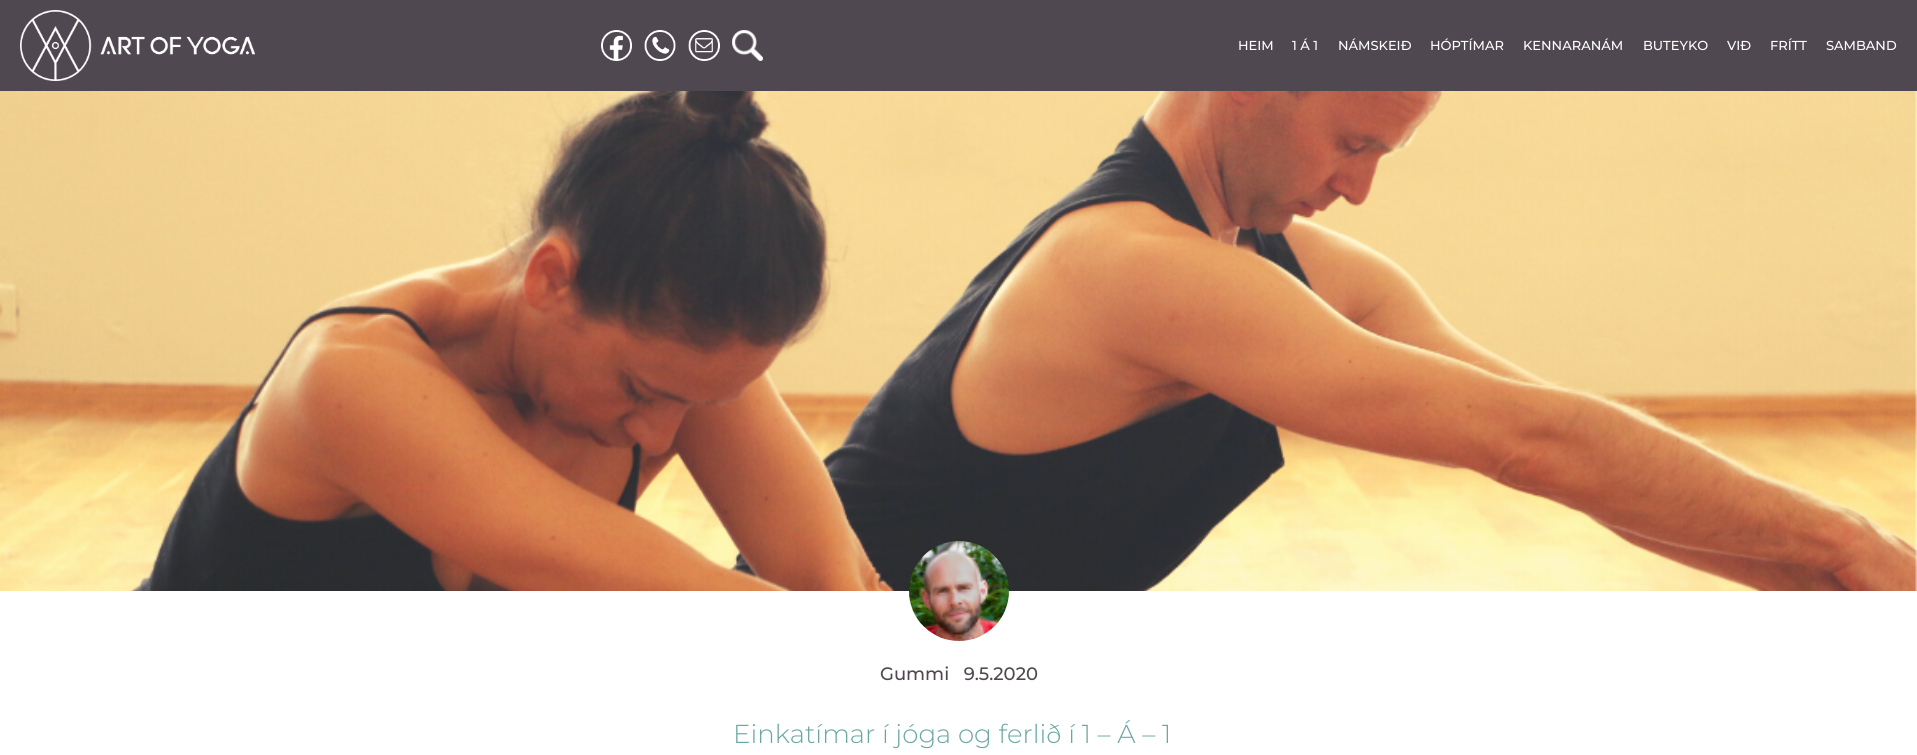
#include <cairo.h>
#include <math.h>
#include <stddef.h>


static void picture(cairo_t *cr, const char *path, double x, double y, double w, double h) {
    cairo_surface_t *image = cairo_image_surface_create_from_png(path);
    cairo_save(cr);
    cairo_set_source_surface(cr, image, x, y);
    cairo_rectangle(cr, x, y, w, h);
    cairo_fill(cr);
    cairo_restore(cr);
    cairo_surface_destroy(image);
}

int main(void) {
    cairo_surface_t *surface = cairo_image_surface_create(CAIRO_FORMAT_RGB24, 1917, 755);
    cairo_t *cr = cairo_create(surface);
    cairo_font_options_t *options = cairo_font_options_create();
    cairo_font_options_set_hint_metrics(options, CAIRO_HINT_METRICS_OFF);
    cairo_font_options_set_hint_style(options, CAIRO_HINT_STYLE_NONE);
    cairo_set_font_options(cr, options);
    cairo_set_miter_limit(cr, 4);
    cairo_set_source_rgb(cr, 1, 1, 1);
    cairo_paint(cr);
    cairo_set_source_rgb(cr, 0.314, 0.282, 0.314);
    cairo_rectangle(cr, 0, 0, 1917, 91);
    cairo_fill(cr);
    picture(cr, "img1.png", 20, 10, 235, 71);
    picture(cr, "img2.png", 601, 30, 31, 31);
    picture(cr, "img3.png", 644, 30, 32, 31);
    picture(cr, "img4.png", 688, 30, 32, 31);
    picture(cr, "img5.png", 732, 30, 31, 31);
    cairo_select_font_face(cr, "Montserrat Medium", CAIRO_FONT_SLANT_NORMAL, CAIRO_FONT_WEIGHT_NORMAL);
    cairo_set_font_size(cr, 13);
    cairo_set_source_rgb(cr, 1, 1, 1);
    cairo_move_to(cr, 1238, 50);
    cairo_show_text(cr, "HEIM");
    cairo_move_to(cr, 1292, 50);
    cairo_show_text(cr, "1 Á 1");
    cairo_move_to(cr, 1338, 50);
    cairo_show_text(cr, "NÁMSKEIÐ");
    cairo_move_to(cr, 1430, 50);
    cairo_show_text(cr, "HÓPTÍMAR");
    cairo_move_to(cr, 1523, 50);
    cairo_show_text(cr, "KENNARANÁM");
    cairo_move_to(cr, 1643, 50);
    cairo_show_text(cr, "BUTEYKO");
    cairo_move_to(cr, 1727, 50);
    cairo_show_text(cr, "VIÐ");
    cairo_move_to(cr, 1770, 50);
    cairo_show_text(cr, "FRÍTT");
    cairo_move_to(cr, 1826, 50);
    cairo_show_text(cr, "SAMBAND");
    picture(cr, "img6.png", 0, 91, 1917, 500);
    picture(cr, "img7.png", 909, 541, 100, 100);
    cairo_set_font_size(cr, 18);
    cairo_set_source_rgb(cr, 0.314, 0.282, 0.314);
    cairo_move_to(cr, 880, 680);
    cairo_show_text(cr, "Gummi   9.5.2020");
    cairo_select_font_face(cr, "Montserrat Light", CAIRO_FONT_SLANT_NORMAL, CAIRO_FONT_WEIGHT_NORMAL);
    cairo_set_font_size(cr, 26);
    cairo_set_source_rgb(cr, 0.416, 0.659, 0.639);
    cairo_move_to(cr, 733, 743);
    cairo_show_text(cr, "Einkatímar í jóga og ferlið í 1 – Á – 1");
    cairo_surface_write_to_png(surface, "page.png");
    cairo_font_options_destroy(options);
    cairo_destroy(cr);
    cairo_surface_destroy(surface);
    return 0;
}
